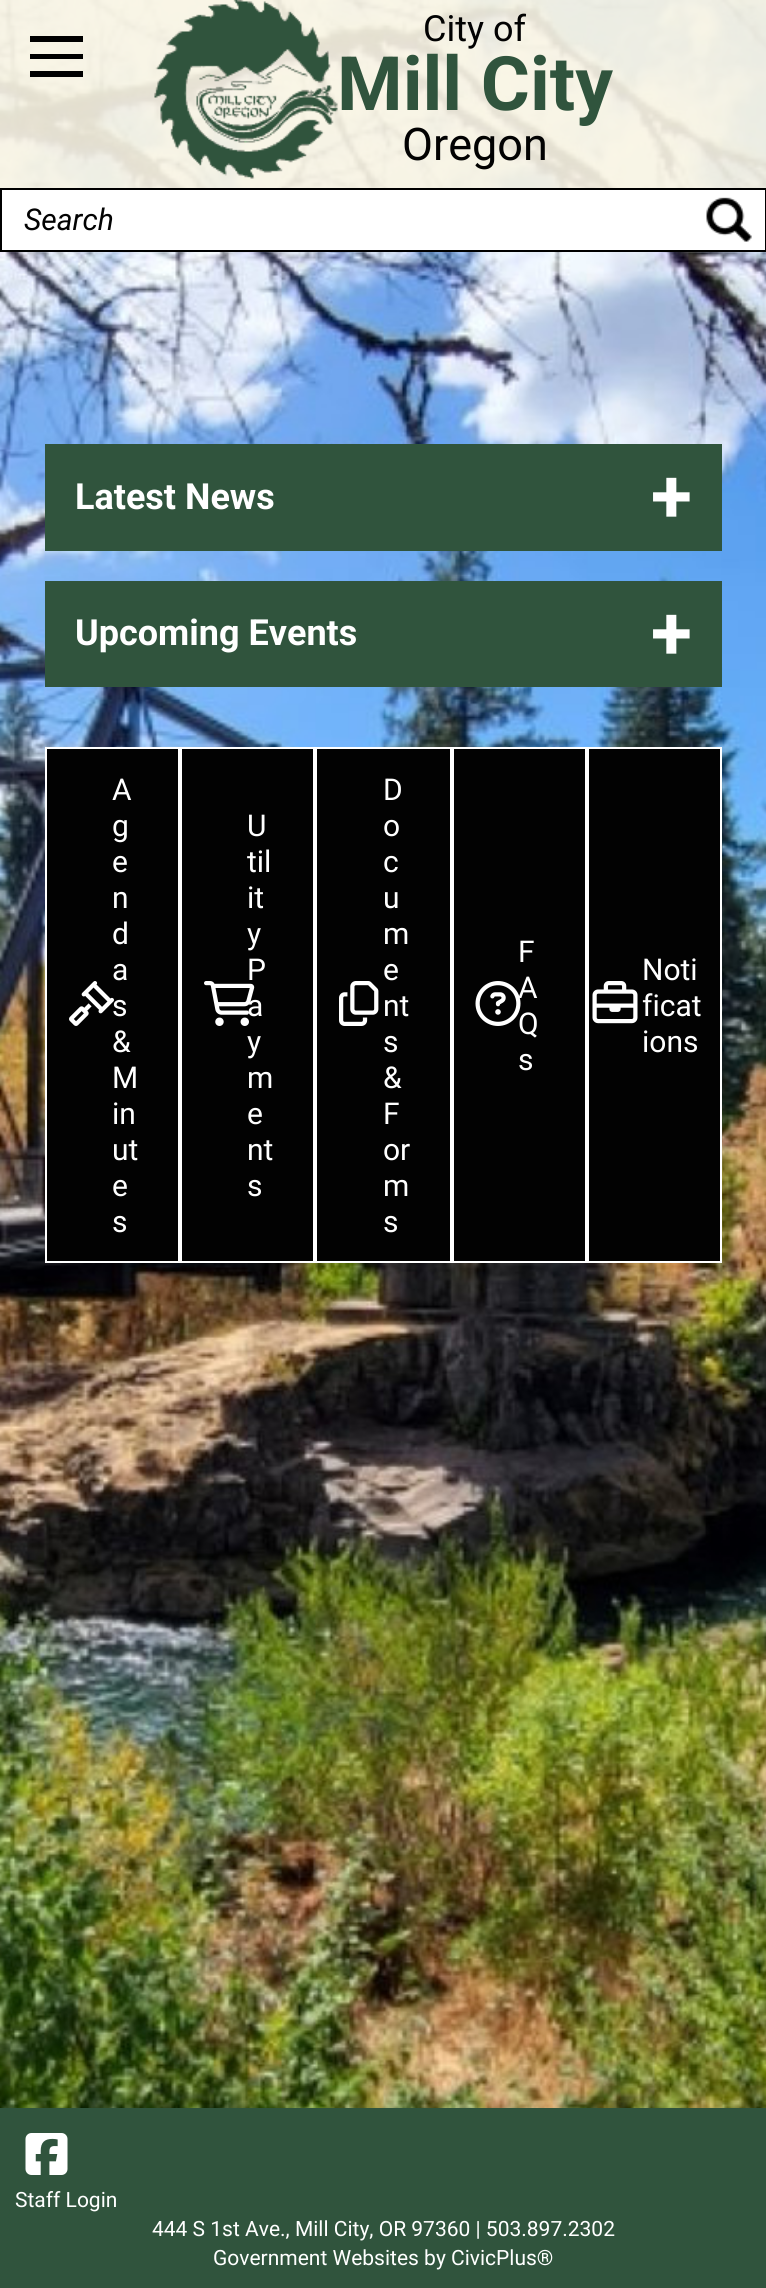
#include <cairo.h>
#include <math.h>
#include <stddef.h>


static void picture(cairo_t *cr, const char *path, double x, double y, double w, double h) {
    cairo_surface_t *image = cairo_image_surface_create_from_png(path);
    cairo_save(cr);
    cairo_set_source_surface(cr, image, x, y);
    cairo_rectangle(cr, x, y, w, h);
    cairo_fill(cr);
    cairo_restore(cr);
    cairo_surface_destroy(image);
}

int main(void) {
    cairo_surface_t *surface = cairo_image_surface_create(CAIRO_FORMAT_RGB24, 766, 2288);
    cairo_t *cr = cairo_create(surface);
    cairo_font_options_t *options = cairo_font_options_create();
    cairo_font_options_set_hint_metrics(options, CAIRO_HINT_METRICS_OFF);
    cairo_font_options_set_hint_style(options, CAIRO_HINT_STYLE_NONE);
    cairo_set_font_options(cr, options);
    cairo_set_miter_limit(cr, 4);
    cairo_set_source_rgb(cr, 1, 1, 1);
    cairo_paint(cr);
    picture(cr, "img1.png", 0, 0, 766, 2108);
    cairo_set_source_rgba(cr, 0.98, 0.961, 0.894, 0.9);
    cairo_rectangle(cr, 0, 0, 766, 188);
    cairo_fill(cr);
    cairo_set_source_rgb(cr, 0, 0, 0);
    cairo_rectangle(cr, 30, 36, 53, 6);
    cairo_fill(cr);
    cairo_rectangle(cr, 30, 54, 53, 5);
    cairo_fill(cr);
    cairo_rectangle(cr, 30, 71, 53, 6);
    cairo_fill(cr);
    picture(cr, "img2.png", 154, 0, 184, 179);
    cairo_select_font_face(cr, "Roboto", CAIRO_FONT_SLANT_NORMAL, CAIRO_FONT_WEIGHT_NORMAL);
    cairo_set_font_size(cr, 36);
    cairo_set_source_rgb(cr, 0.008, 0.008, 0.008);
    cairo_move_to(cr, 423, 41);
    cairo_show_text(cr, "City of");
    cairo_select_font_face(cr, "Roboto", CAIRO_FONT_SLANT_NORMAL, CAIRO_FONT_WEIGHT_BOLD);
    cairo_set_font_size(cr, 75);
    cairo_set_source_rgb(cr, 0.188, 0.329, 0.239);
    cairo_move_to(cr, 337, 110);
    cairo_show_text(cr, "Mill City");
    cairo_select_font_face(cr, "Roboto", CAIRO_FONT_SLANT_NORMAL, CAIRO_FONT_WEIGHT_NORMAL);
    cairo_set_font_size(cr, 45);
    cairo_set_source_rgb(cr, 0.008, 0.008, 0.008);
    cairo_move_to(cr, 402, 160);
    cairo_show_text(cr, "Oregon");
    cairo_set_source_rgb(cr, 1, 1, 1);
    cairo_rectangle(cr, 1, 189, 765, 62);
    cairo_fill_preserve(cr);
    cairo_set_source_rgb(cr, 0, 0, 0);
    cairo_stroke(cr);
    cairo_select_font_face(cr, "Roboto", CAIRO_FONT_SLANT_ITALIC, CAIRO_FONT_WEIGHT_NORMAL);
    cairo_set_font_size(cr, 30);
    cairo_set_source_rgb(cr, 0.008, 0.008, 0.008);
    cairo_move_to(cr, 24, 230);
    cairo_show_text(cr, "Search");
    picture(cr, "img3.png", 706, 197, 46, 45);
    cairo_set_source_rgb(cr, 0.188, 0.329, 0.239);
    cairo_rectangle(cr, 45, 444, 677, 107);
    cairo_fill(cr);
    cairo_select_font_face(cr, "Roboto", CAIRO_FONT_SLANT_NORMAL, CAIRO_FONT_WEIGHT_BOLD);
    cairo_set_font_size(cr, 36);
    cairo_set_source_rgb(cr, 1, 1, 1);
    cairo_move_to(cr, 75, 509);
    cairo_show_text(cr, "Latest News");
    cairo_set_font_size(cr, 75);
    cairo_move_to(cr, 651, 522);
    cairo_show_text(cr, "+");
    cairo_set_source_rgb(cr, 0.188, 0.329, 0.239);
    cairo_rectangle(cr, 45, 581, 677, 106);
    cairo_fill(cr);
    cairo_set_font_size(cr, 36);
    cairo_set_source_rgb(cr, 1, 1, 1);
    cairo_move_to(cr, 75, 645);
    cairo_show_text(cr, "Upcoming Events");
    cairo_set_font_size(cr, 75);
    cairo_move_to(cr, 651, 659);
    cairo_show_text(cr, "+");
    cairo_set_source_rgb(cr, 0.008, 0.008, 0.008);
    cairo_rectangle(cr, 46, 748, 133, 514);
    cairo_fill_preserve(cr);
    cairo_set_source_rgb(cr, 1, 1, 1);
    cairo_stroke(cr);
    picture(cr, "img4.png", 69, 981, 45, 45);
    cairo_select_font_face(cr, "Roboto", CAIRO_FONT_SLANT_NORMAL, CAIRO_FONT_WEIGHT_NORMAL);
    cairo_set_font_size(cr, 30);
    cairo_move_to(cr, 112, 800);
    cairo_show_text(cr, "A");
    cairo_move_to(cr, 112, 836);
    cairo_show_text(cr, "g");
    cairo_move_to(cr, 112, 872);
    cairo_show_text(cr, "e");
    cairo_move_to(cr, 112, 908);
    cairo_show_text(cr, "n");
    cairo_move_to(cr, 112, 944);
    cairo_show_text(cr, "d");
    cairo_move_to(cr, 112, 980);
    cairo_show_text(cr, "a");
    cairo_move_to(cr, 112, 1016);
    cairo_show_text(cr, "s");
    cairo_move_to(cr, 112, 1052);
    cairo_show_text(cr, "&");
    cairo_move_to(cr, 112, 1088);
    cairo_show_text(cr, "M");
    cairo_move_to(cr, 112, 1124);
    cairo_show_text(cr, "in");
    cairo_move_to(cr, 112, 1160);
    cairo_show_text(cr, "ut");
    cairo_move_to(cr, 112, 1196);
    cairo_show_text(cr, "e");
    cairo_move_to(cr, 112, 1232);
    cairo_show_text(cr, "s");
    cairo_set_source_rgb(cr, 0.008, 0.008, 0.008);
    cairo_rectangle(cr, 181, 748, 133, 514);
    cairo_fill_preserve(cr);
    cairo_set_source_rgb(cr, 1, 1, 1);
    cairo_stroke(cr);
    picture(cr, "img5.png", 204, 981, 51, 45);
    cairo_move_to(cr, 247, 836);
    cairo_show_text(cr, "U");
    cairo_move_to(cr, 247, 872);
    cairo_show_text(cr, "til");
    cairo_move_to(cr, 247, 908);
    cairo_show_text(cr, "it");
    cairo_move_to(cr, 247, 944);
    cairo_show_text(cr, "y");
    cairo_move_to(cr, 247, 980);
    cairo_show_text(cr, "P");
    cairo_move_to(cr, 247, 1016);
    cairo_show_text(cr, "a");
    cairo_move_to(cr, 247, 1052);
    cairo_show_text(cr, "y");
    cairo_move_to(cr, 247, 1088);
    cairo_show_text(cr, "m");
    cairo_move_to(cr, 247, 1124);
    cairo_show_text(cr, "e");
    cairo_move_to(cr, 247, 1160);
    cairo_show_text(cr, "nt");
    cairo_move_to(cr, 247, 1196);
    cairo_show_text(cr, "s");
    cairo_set_source_rgb(cr, 0.008, 0.008, 0.008);
    cairo_rectangle(cr, 316, 748, 135, 514);
    cairo_fill_preserve(cr);
    cairo_set_source_rgb(cr, 1, 1, 1);
    cairo_stroke(cr);
    picture(cr, "img6.png", 339, 981, 40, 45);
    cairo_move_to(cr, 383, 800);
    cairo_show_text(cr, "D");
    cairo_move_to(cr, 383, 836);
    cairo_show_text(cr, "o");
    cairo_move_to(cr, 383, 872);
    cairo_show_text(cr, "c");
    cairo_move_to(cr, 383, 908);
    cairo_show_text(cr, "u");
    cairo_move_to(cr, 383, 944);
    cairo_show_text(cr, "m");
    cairo_move_to(cr, 383, 980);
    cairo_show_text(cr, "e");
    cairo_move_to(cr, 383, 1016);
    cairo_show_text(cr, "nt");
    cairo_move_to(cr, 383, 1052);
    cairo_show_text(cr, "s");
    cairo_move_to(cr, 383, 1088);
    cairo_show_text(cr, "&");
    cairo_move_to(cr, 383, 1124);
    cairo_show_text(cr, "F");
    cairo_move_to(cr, 383, 1160);
    cairo_show_text(cr, "or");
    cairo_move_to(cr, 383, 1196);
    cairo_show_text(cr, "m");
    cairo_move_to(cr, 383, 1232);
    cairo_show_text(cr, "s");
    cairo_set_source_rgb(cr, 0.008, 0.008, 0.008);
    cairo_rectangle(cr, 453, 748, 133, 514);
    cairo_fill_preserve(cr);
    cairo_set_source_rgb(cr, 1, 1, 1);
    cairo_stroke(cr);
    picture(cr, "img7.png", 475, 981, 46, 45);
    cairo_move_to(cr, 518, 962);
    cairo_show_text(cr, "F");
    cairo_move_to(cr, 518, 998);
    cairo_show_text(cr, "A");
    cairo_move_to(cr, 518, 1034);
    cairo_show_text(cr, "Q");
    cairo_move_to(cr, 518, 1070);
    cairo_show_text(cr, "s");
    cairo_set_source_rgb(cr, 0.008, 0.008, 0.008);
    cairo_rectangle(cr, 588, 748, 133, 514);
    cairo_fill_preserve(cr);
    cairo_set_source_rgb(cr, 1, 1, 1);
    cairo_stroke(cr);
    picture(cr, "img8.png", 592, 981, 46, 43);
    cairo_move_to(cr, 642, 980);
    cairo_show_text(cr, "Noti");
    cairo_move_to(cr, 642, 1016);
    cairo_show_text(cr, "ficat");
    cairo_move_to(cr, 642, 1052);
    cairo_show_text(cr, "ions");
    cairo_set_source_rgb(cr, 0.188, 0.329, 0.239);
    cairo_rectangle(cr, 0, 2108, 766, 180);
    cairo_fill(cr);
    picture(cr, "img9.png", 25, 2133, 43, 42);
    cairo_set_font_size(cr, 21);
    cairo_set_source_rgb(cr, 1, 1, 1);
    cairo_move_to(cr, 15, 2207);
    cairo_show_text(cr, "Staff Login");
    cairo_move_to(cr, 152, 2236);
    cairo_show_text(cr, "444 S 1st Ave., Mill City, OR 97360 | 503.897.2302");
    cairo_move_to(cr, 213, 2265);
    cairo_show_text(cr, "Government Websites by CivicPlus®");
    cairo_surface_write_to_png(surface, "page.png");
    cairo_font_options_destroy(options);
    cairo_destroy(cr);
    cairo_surface_destroy(surface);
    return 0;
}
